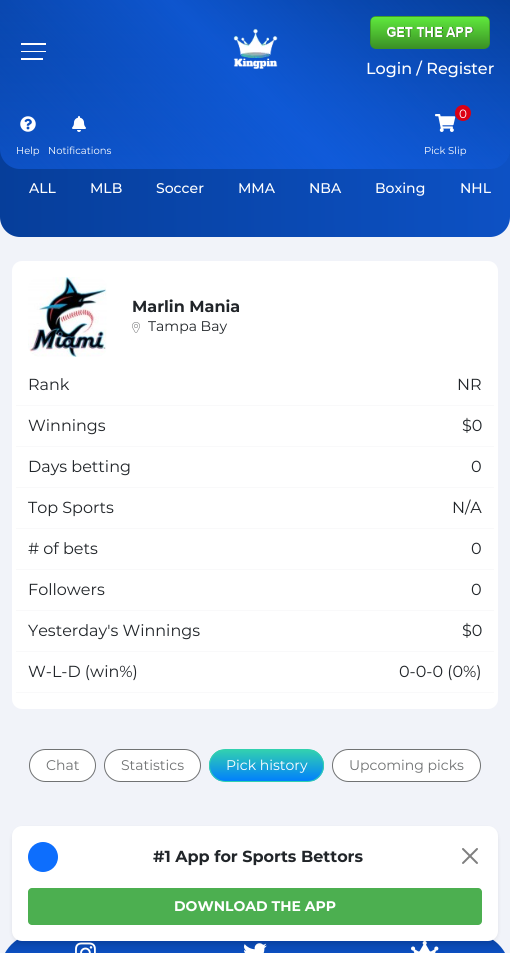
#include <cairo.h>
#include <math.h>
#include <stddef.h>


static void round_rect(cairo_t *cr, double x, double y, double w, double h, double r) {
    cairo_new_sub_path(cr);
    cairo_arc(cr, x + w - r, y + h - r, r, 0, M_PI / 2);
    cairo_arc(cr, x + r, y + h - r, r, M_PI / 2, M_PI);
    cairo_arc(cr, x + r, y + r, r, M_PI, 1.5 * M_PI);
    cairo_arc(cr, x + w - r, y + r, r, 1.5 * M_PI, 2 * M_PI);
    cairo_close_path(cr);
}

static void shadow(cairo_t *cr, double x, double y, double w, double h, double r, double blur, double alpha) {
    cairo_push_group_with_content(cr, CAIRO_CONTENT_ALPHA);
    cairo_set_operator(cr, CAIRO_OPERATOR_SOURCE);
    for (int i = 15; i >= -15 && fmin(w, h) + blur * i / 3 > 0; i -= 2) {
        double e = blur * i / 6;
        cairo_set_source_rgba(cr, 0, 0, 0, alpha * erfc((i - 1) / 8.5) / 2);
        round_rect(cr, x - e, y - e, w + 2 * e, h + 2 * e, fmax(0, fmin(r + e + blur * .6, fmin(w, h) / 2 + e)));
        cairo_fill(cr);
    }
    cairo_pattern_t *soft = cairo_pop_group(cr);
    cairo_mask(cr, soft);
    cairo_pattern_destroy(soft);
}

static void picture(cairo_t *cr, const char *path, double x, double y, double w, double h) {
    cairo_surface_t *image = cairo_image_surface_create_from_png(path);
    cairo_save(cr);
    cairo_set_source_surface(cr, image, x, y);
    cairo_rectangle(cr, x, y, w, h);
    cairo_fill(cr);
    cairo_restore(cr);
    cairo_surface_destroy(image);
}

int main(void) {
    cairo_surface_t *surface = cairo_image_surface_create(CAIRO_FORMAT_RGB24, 510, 953);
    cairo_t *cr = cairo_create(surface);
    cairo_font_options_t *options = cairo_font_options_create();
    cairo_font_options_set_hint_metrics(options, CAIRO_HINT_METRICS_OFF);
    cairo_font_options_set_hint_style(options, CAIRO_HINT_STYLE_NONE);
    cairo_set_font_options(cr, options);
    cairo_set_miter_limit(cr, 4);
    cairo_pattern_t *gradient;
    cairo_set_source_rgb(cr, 0.945, 0.953, 0.976);
    cairo_paint(cr);
    gradient = cairo_pattern_create_linear(0, 119, 510, 118);
    cairo_pattern_add_color_stop_rgba(gradient, 0, 0.024, 0.243, 0.604, 1);
    cairo_pattern_add_color_stop_rgba(gradient, 1, 0.051, 0.318, 0.769, 1);
    cairo_set_source(cr, gradient);
    cairo_pattern_destroy(gradient);
    cairo_new_path(cr);
    cairo_move_to(cr, 0, 0);
    cairo_line_to(cr, 510, 0);
    cairo_line_to(cr, 510, 217);
    cairo_curve_to(cr, 510, 228, 501, 237, 490, 237);
    cairo_line_to(cr, 20, 237);
    cairo_curve_to(cr, 9, 237, 0, 228, 0, 217);
    cairo_close_path(cr);
    cairo_fill(cr);
    gradient = cairo_pattern_create_linear(255, 0, 255, 169);
    cairo_pattern_add_color_stop_rgba(gradient, 0, 0.024, 0.243, 0.604, 1);
    cairo_pattern_add_color_stop_rgba(gradient, 1, 0.051, 0.318, 0.769, 1);
    cairo_set_source(cr, gradient);
    cairo_pattern_destroy(gradient);
    cairo_new_path(cr);
    cairo_move_to(cr, 0, 0);
    cairo_line_to(cr, 510, 0);
    cairo_line_to(cr, 510, 149);
    cairo_curve_to(cr, 510, 160, 501, 169, 490, 169);
    cairo_line_to(cr, 20, 169);
    cairo_curve_to(cr, 9, 169, 0, 160, 0, 149);
    cairo_close_path(cr);
    cairo_fill(cr);
    gradient = cairo_pattern_create_linear(85, 254, 425, -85);
    cairo_pattern_add_color_stop_rgba(gradient, 0, 0.067, 0.373, 0.894, 0);
    cairo_pattern_add_color_stop_rgba(gradient, 0.25, 0.067, 0.373, 0.894, 0.3);
    cairo_pattern_add_color_stop_rgba(gradient, 0.5, 0.067, 0.373, 0.894, 0.7);
    cairo_pattern_add_color_stop_rgba(gradient, 0.75, 0.067, 0.373, 0.894, 0.3);
    cairo_pattern_add_color_stop_rgba(gradient, 1, 0.067, 0.373, 0.894, 0);
    cairo_set_source(cr, gradient);
    cairo_pattern_destroy(gradient);
    cairo_new_path(cr);
    cairo_move_to(cr, 0, 0);
    cairo_line_to(cr, 510, 0);
    cairo_line_to(cr, 510, 149);
    cairo_curve_to(cr, 510, 160, 501, 169, 490, 169);
    cairo_line_to(cr, 20, 169);
    cairo_curve_to(cr, 9, 169, 0, 160, 0, 149);
    cairo_close_path(cr);
    cairo_fill(cr);
    cairo_set_source_rgb(cr, 1, 1, 1);
    cairo_rectangle(cr, 21, 43, 25, 2);
    cairo_fill(cr);
    cairo_rectangle(cr, 21, 51, 25, 1);
    cairo_fill(cr);
    cairo_rectangle(cr, 21, 58, 22, 2);
    cairo_fill(cr);
    picture(cr, "img1.png", 233, 28, 45, 41);
    picture(cr, "img2.png", 370, 16, 120, 33);
    cairo_select_font_face(cr, "Montserrat Medium", CAIRO_FONT_SLANT_NORMAL, CAIRO_FONT_WEIGHT_NORMAL);
    cairo_set_font_size(cr, 16);
    cairo_move_to(cr, 366, 74);
    cairo_show_text(cr, "Login / Register");
    picture(cr, "img3.png", 20, 116, 16, 16);
    cairo_select_font_face(cr, "Montserrat", CAIRO_FONT_SLANT_NORMAL, CAIRO_FONT_WEIGHT_NORMAL);
    cairo_set_font_size(cr, 10);
    cairo_move_to(cr, 16, 154);
    cairo_show_text(cr, "Help");
    picture(cr, "img4.png", 72, 116, 14, 16);
    cairo_move_to(cr, 48, 154);
    cairo_show_text(cr, "Notifications");
    picture(cr, "img5.png", 435, 114, 21, 18);
    cairo_set_source_rgb(cr, 0.859, 0, 0.078);
    cairo_arc(cr, 463, 113, 8, 0, 2 * M_PI);
    cairo_fill(cr);
    cairo_set_font_size(cr, 12);
    cairo_set_source_rgb(cr, 1, 1, 1);
    cairo_move_to(cr, 459, 118);
    cairo_show_text(cr, "0");
    cairo_set_font_size(cr, 10);
    cairo_move_to(cr, 424, 154);
    cairo_show_text(cr, "Pick Slip");
    cairo_select_font_face(cr, "Montserrat Medium", CAIRO_FONT_SLANT_NORMAL, CAIRO_FONT_WEIGHT_NORMAL);
    cairo_set_font_size(cr, 14);
    cairo_move_to(cr, 29, 193);
    cairo_show_text(cr, "ALL");
    cairo_move_to(cr, 90, 193);
    cairo_show_text(cr, "MLB");
    cairo_move_to(cr, 156, 193);
    cairo_show_text(cr, "Soccer");
    cairo_move_to(cr, 238, 193);
    cairo_show_text(cr, "MMA");
    cairo_move_to(cr, 309, 193);
    cairo_show_text(cr, "NBA");
    cairo_move_to(cr, 375, 193);
    cairo_show_text(cr, "Boxing");
    cairo_move_to(cr, 460, 193);
    cairo_show_text(cr, "NHL");
    round_rect(cr, 12, 261, 486, 448, 10);
    cairo_fill(cr);
    picture(cr, "img6.png", 28, 277, 79, 80);
    cairo_select_font_face(cr, "Montserrat", CAIRO_FONT_SLANT_NORMAL, CAIRO_FONT_WEIGHT_BOLD);
    cairo_set_font_size(cr, 16);
    cairo_set_source_rgb(cr, 0.129, 0.145, 0.161);
    cairo_move_to(cr, 132, 312);
    cairo_show_text(cr, "Marlin Mania");
    picture(cr, "img7.png", 132, 322, 8, 11);
    cairo_select_font_face(cr, "Montserrat", CAIRO_FONT_SLANT_NORMAL, CAIRO_FONT_WEIGHT_NORMAL);
    cairo_set_font_size(cr, 14);
    cairo_move_to(cr, 148, 331);
    cairo_show_text(cr, "Tampa Bay");
    cairo_set_source_rgb(cr, 0.973, 0.976, 0.98);
    cairo_rectangle(cr, 16, 405, 478, 1);
    cairo_fill(cr);
    cairo_set_font_size(cr, 16);
    cairo_set_source_rgb(cr, 0.129, 0.145, 0.161);
    cairo_move_to(cr, 28, 390);
    cairo_show_text(cr, "Rank");
    cairo_move_to(cr, 457, 390);
    cairo_show_text(cr, "NR");
    cairo_set_source_rgb(cr, 0.973, 0.976, 0.98);
    cairo_rectangle(cr, 16, 446, 478, 1);
    cairo_fill(cr);
    cairo_set_source_rgb(cr, 0.129, 0.145, 0.161);
    cairo_move_to(cr, 28, 431);
    cairo_show_text(cr, "Winnings");
    cairo_move_to(cr, 462, 431);
    cairo_show_text(cr, "$0");
    cairo_set_source_rgb(cr, 0.973, 0.976, 0.98);
    cairo_rectangle(cr, 16, 487, 478, 1);
    cairo_fill(cr);
    cairo_set_source_rgb(cr, 0.129, 0.145, 0.161);
    cairo_move_to(cr, 28, 472);
    cairo_show_text(cr, "Days betting");
    cairo_move_to(cr, 471, 472);
    cairo_show_text(cr, "0");
    cairo_set_source_rgb(cr, 0.973, 0.976, 0.98);
    cairo_rectangle(cr, 16, 528, 478, 1);
    cairo_fill(cr);
    cairo_set_source_rgb(cr, 0.129, 0.145, 0.161);
    cairo_move_to(cr, 28, 513);
    cairo_show_text(cr, "Top Sports");
    cairo_move_to(cr, 452, 513);
    cairo_show_text(cr, "N/A");
    cairo_set_source_rgb(cr, 0.973, 0.976, 0.98);
    cairo_rectangle(cr, 16, 569, 478, 1);
    cairo_fill(cr);
    cairo_set_source_rgb(cr, 0.129, 0.145, 0.161);
    cairo_move_to(cr, 28, 554);
    cairo_show_text(cr, "# of bets");
    cairo_move_to(cr, 471, 554);
    cairo_show_text(cr, "0");
    cairo_set_source_rgb(cr, 0.973, 0.976, 0.98);
    cairo_rectangle(cr, 16, 610, 478, 1);
    cairo_fill(cr);
    cairo_set_source_rgb(cr, 0.129, 0.145, 0.161);
    cairo_move_to(cr, 28, 595);
    cairo_show_text(cr, "Followers");
    cairo_move_to(cr, 471, 595);
    cairo_show_text(cr, "0");
    cairo_set_source_rgb(cr, 0.973, 0.976, 0.98);
    cairo_rectangle(cr, 16, 651, 478, 1);
    cairo_fill(cr);
    cairo_set_source_rgb(cr, 0.129, 0.145, 0.161);
    cairo_move_to(cr, 28, 636);
    cairo_show_text(cr, "Yesterday's Winnings");
    cairo_move_to(cr, 462, 636);
    cairo_show_text(cr, "$0");
    cairo_set_source_rgb(cr, 0.973, 0.976, 0.98);
    cairo_rectangle(cr, 16, 692, 478, 1);
    cairo_fill(cr);
    cairo_set_source_rgb(cr, 0.129, 0.145, 0.161);
    cairo_move_to(cr, 28, 677);
    cairo_show_text(cr, "W-L-D (win%)");
    cairo_move_to(cr, 399, 677);
    cairo_show_text(cr, "0-0-0 (0%)");
    cairo_set_source_rgb(cr, 1, 1, 1);
    round_rect(cr, 29.5, 749.5, 66, 32, 16);
    cairo_fill_preserve(cr);
    cairo_set_source_rgb(cr, 0.439, 0.447, 0.451);
    cairo_set_line_width(cr, 1);
    cairo_stroke(cr);
    cairo_set_font_size(cr, 14);
    cairo_move_to(cr, 46, 770);
    cairo_show_text(cr, "Chat");
    cairo_set_source_rgb(cr, 1, 1, 1);
    round_rect(cr, 104.5, 749.5, 96, 32, 16);
    cairo_fill_preserve(cr);
    cairo_set_source_rgb(cr, 0.439, 0.447, 0.451);
    cairo_stroke(cr);
    cairo_move_to(cr, 121, 770);
    cairo_show_text(cr, "Statistics");
    cairo_save(cr);
    round_rect(cr, 209, 749, 115, 33, 16.5);
    cairo_clip(cr);
    gradient = cairo_pattern_create_linear(267, 781, 267, 750);
    cairo_pattern_add_color_stop_rgba(gradient, 0, 0.004, 0.502, 0.988, 1);
    cairo_pattern_add_color_stop_rgba(gradient, 1, 0.196, 0.816, 0.69, 1);
    cairo_set_source(cr, gradient);
    cairo_pattern_destroy(gradient);
    cairo_rectangle(cr, 209, 750, 115, 31);
    cairo_fill(cr);
    cairo_restore(cr);
    round_rect(cr, 209.5, 749.5, 114, 32, 16);
    cairo_set_source_rgb(cr, 0.196, 0.816, 0.69);
    cairo_stroke(cr);
    cairo_set_source_rgb(cr, 1, 1, 1);
    cairo_move_to(cr, 226, 770);
    cairo_show_text(cr, "Pick history");
    round_rect(cr, 332.5, 749.5, 148, 32, 16);
    cairo_fill_preserve(cr);
    cairo_set_source_rgb(cr, 0.439, 0.447, 0.451);
    cairo_stroke(cr);
    cairo_move_to(cr, 349, 770);
    cairo_show_text(cr, "Upcoming picks");
    gradient = cairo_pattern_create_linear(85, 933, 85, 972);
    cairo_pattern_add_color_stop_rgba(gradient, 0, 0.024, 0.243, 0.604, 1);
    cairo_pattern_add_color_stop_rgba(gradient, 1, 0.071, 0.376, 0.902, 1);
    cairo_set_source(cr, gradient);
    cairo_pattern_destroy(gradient);
    cairo_new_path(cr);
    cairo_move_to(cr, 39, 933);
    cairo_line_to(cr, 170, 933);
    cairo_line_to(cr, 170, 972);
    cairo_line_to(cr, 0, 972);
    cairo_curve_to(cr, 0, 950.5, 17.5, 933, 39, 933);
    cairo_close_path(cr);
    cairo_fill(cr);
    picture(cr, "img9.png", 75, 942, 21, 11);
    gradient = cairo_pattern_create_linear(255, 933, 255, 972);
    cairo_pattern_add_color_stop_rgba(gradient, 0, 0.024, 0.243, 0.604, 1);
    cairo_pattern_add_color_stop_rgba(gradient, 1, 0.071, 0.376, 0.902, 1);
    cairo_set_source(cr, gradient);
    cairo_pattern_destroy(gradient);
    cairo_rectangle(cr, 170, 941, 170, 12);
    cairo_fill(cr);
    picture(cr, "img10.png", 244, 943, 23, 10);
    gradient = cairo_pattern_create_linear(425, 933, 425, 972);
    cairo_pattern_add_color_stop_rgba(gradient, 0, 0.024, 0.243, 0.604, 1);
    cairo_pattern_add_color_stop_rgba(gradient, 1, 0.071, 0.376, 0.902, 1);
    cairo_set_source(cr, gradient);
    cairo_pattern_destroy(gradient);
    cairo_new_path(cr);
    cairo_move_to(cr, 340, 933);
    cairo_line_to(cr, 471, 933);
    cairo_curve_to(cr, 492.5, 933, 510, 950.5, 510, 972);
    cairo_line_to(cr, 340, 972);
    cairo_close_path(cr);
    cairo_fill(cr);
    picture(cr, "img11.png", 411, 941, 28, 12);
    cairo_set_source_rgb(cr, 0, 0, 0);
    shadow(cr, 12, 828, 486, 115, 10, 2, 0.07);
    cairo_set_source_rgb(cr, 1, 1, 1);
    round_rect(cr, 12, 826, 486, 115, 10);
    cairo_fill(cr);
    cairo_set_source_rgb(cr, 0.051, 0.431, 0.992);
    cairo_arc(cr, 43, 857, 15, 0, 2 * M_PI);
    cairo_fill(cr);
    cairo_select_font_face(cr, "Montserrat", CAIRO_FONT_SLANT_NORMAL, CAIRO_FONT_WEIGHT_BOLD);
    cairo_set_font_size(cr, 16);
    cairo_set_source_rgb(cr, 0.129, 0.145, 0.161);
    cairo_move_to(cr, 153, 862);
    cairo_show_text(cr, "#1 App for Sports Bettors");
    picture(cr, "img8.png", 462, 848, 16, 16);
    cairo_set_source_rgb(cr, 0.298, 0.686, 0.314);
    round_rect(cr, 28, 888, 454, 37, 4);
    cairo_fill(cr);
    cairo_set_font_size(cr, 14);
    cairo_set_source_rgb(cr, 1, 1, 1);
    cairo_move_to(cr, 174, 911);
    cairo_show_text(cr, "DOWNLOAD THE APP");
    cairo_surface_write_to_png(surface, "page.png");
    cairo_font_options_destroy(options);
    cairo_destroy(cr);
    cairo_surface_destroy(surface);
    return 0;
}
